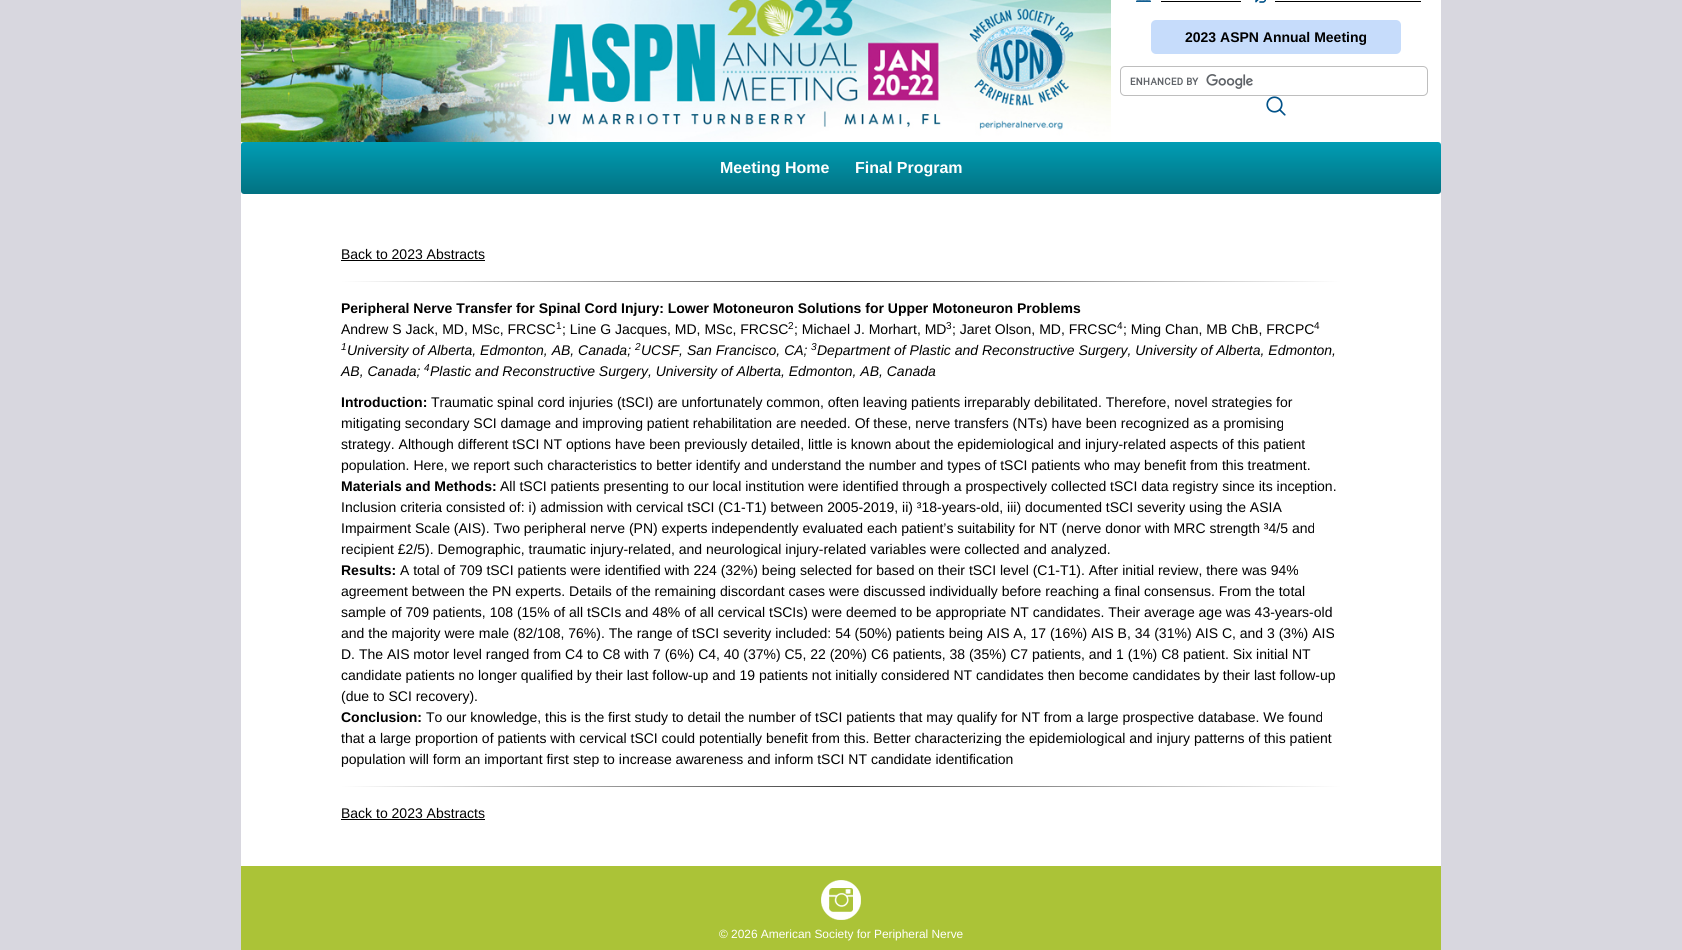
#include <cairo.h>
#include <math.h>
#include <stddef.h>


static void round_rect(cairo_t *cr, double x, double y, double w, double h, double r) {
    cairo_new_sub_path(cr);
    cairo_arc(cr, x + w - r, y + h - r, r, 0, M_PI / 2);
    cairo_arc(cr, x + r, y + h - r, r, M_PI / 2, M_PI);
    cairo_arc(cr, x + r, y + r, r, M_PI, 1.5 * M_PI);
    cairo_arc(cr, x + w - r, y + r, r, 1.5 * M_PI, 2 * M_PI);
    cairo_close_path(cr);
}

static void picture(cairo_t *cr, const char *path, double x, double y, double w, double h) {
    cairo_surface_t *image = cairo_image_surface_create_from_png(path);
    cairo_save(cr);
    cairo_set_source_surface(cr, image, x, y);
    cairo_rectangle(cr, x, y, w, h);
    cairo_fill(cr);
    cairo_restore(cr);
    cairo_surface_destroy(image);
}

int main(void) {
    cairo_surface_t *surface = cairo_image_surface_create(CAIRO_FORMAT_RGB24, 1682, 950);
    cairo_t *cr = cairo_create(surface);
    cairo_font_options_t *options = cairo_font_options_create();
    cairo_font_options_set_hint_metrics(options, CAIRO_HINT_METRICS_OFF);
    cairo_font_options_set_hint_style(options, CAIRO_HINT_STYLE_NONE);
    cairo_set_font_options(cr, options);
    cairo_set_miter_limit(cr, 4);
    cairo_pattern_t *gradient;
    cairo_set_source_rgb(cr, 0.847, 0.843, 0.875);
    cairo_paint(cr);
    cairo_set_source_rgb(cr, 1, 1, 1);
    cairo_rectangle(cr, 241, 0, 1200, 866);
    cairo_fill(cr);
    picture(cr, "img1.png", 241, 0, 870, 142);
    picture(cr, "img2.png", 1136, 0, 15, 2);
    cairo_set_source_rgb(cr, 0, 0, 0);
    cairo_rectangle(cr, 1161, 1, 80, 1);
    cairo_fill(cr);
    picture(cr, "img3.png", 1255, 0, 11, 3);
    cairo_rectangle(cr, 1275, 1, 146, 1);
    cairo_fill(cr);
    cairo_set_source_rgb(cr, 0.776, 0.863, 0.984);
    round_rect(cr, 1151, 20, 250, 34, 5);
    cairo_fill(cr);
    cairo_select_font_face(cr, "Liberation Sans", CAIRO_FONT_SLANT_NORMAL, CAIRO_FONT_WEIGHT_BOLD);
    cairo_set_font_size(cr, 14);
    cairo_set_source_rgb(cr, 0, 0, 0);
    cairo_move_to(cr, 1185, 42);
    cairo_show_text(cr, "2023 ASPN Annual Meeting");
    picture(cr, "img4.png", 1130, 74, 123, 15);
    round_rect(cr, 1120.5, 66.5, 307, 29, 4.5);
    cairo_set_source_rgb(cr, 0.745, 0.745, 0.745);
    cairo_set_line_width(cr, 1);
    cairo_stroke(cr);
    picture(cr, "img5.png", 1266, 96, 20, 20);
    gradient = cairo_pattern_create_linear(841, 142, 841, 194);
    cairo_pattern_add_color_stop_rgba(gradient, 0, 0.004, 0.616, 0.706, 1);
    cairo_pattern_add_color_stop_rgba(gradient, 1, 0.008, 0.447, 0.51, 1);
    cairo_set_source(cr, gradient);
    cairo_pattern_destroy(gradient);
    round_rect(cr, 241, 142, 1200, 52, 3);
    cairo_fill(cr);
    cairo_set_font_size(cr, 16);
    cairo_set_source_rgb(cr, 1, 1, 1);
    cairo_move_to(cr, 720, 173);
    cairo_show_text(cr, "Meeting Home");
    cairo_move_to(cr, 855, 173);
    cairo_show_text(cr, "Final Program");
    cairo_select_font_face(cr, "Liberation Sans", CAIRO_FONT_SLANT_NORMAL, CAIRO_FONT_WEIGHT_NORMAL);
    cairo_set_font_size(cr, 14);
    cairo_set_source_rgb(cr, 0, 0, 0);
    cairo_move_to(cr, 341, 259);
    cairo_show_text(cr, "Back to 2023 Abstracts");
    cairo_rectangle(cr, 341, 260, 144, 1);
    cairo_fill(cr);
    gradient = cairo_pattern_create_linear(341, 282, 1341, 281);
    cairo_pattern_add_color_stop_rgba(gradient, 0, 1, 1, 1, 1);
    cairo_pattern_add_color_stop_rgba(gradient, 0.5, 0.251, 0.251, 0.251, 1);
    cairo_pattern_add_color_stop_rgba(gradient, 1, 1, 1, 1, 1);
    cairo_set_source(cr, gradient);
    cairo_pattern_destroy(gradient);
    cairo_rectangle(cr, 341, 281, 1000, 1);
    cairo_fill(cr);
    cairo_select_font_face(cr, "Liberation Sans", CAIRO_FONT_SLANT_NORMAL, CAIRO_FONT_WEIGHT_BOLD);
    cairo_set_source_rgb(cr, 0, 0, 0);
    cairo_move_to(cr, 341, 313);
    cairo_show_text(cr, "Peripheral Nerve Transfer for Spinal Cord Injury: Lower Motoneuron Solutions for Upper Motoneuron Problems");
    cairo_select_font_face(cr, "Liberation Sans", CAIRO_FONT_SLANT_NORMAL, CAIRO_FONT_WEIGHT_NORMAL);
    cairo_move_to(cr, 341, 334);
    cairo_show_text(cr, "Andrew S Jack, MD, MSc, FRCSC");
    cairo_set_font_size(cr, 10);
    cairo_move_to(cr, 556, 329);
    cairo_show_text(cr, "1");
    cairo_set_font_size(cr, 14);
    cairo_move_to(cr, 562, 334);
    cairo_show_text(cr, "; Line G Jacques, MD, MSc, FRCSC");
    cairo_set_font_size(cr, 10);
    cairo_move_to(cr, 788, 329);
    cairo_show_text(cr, "2");
    cairo_set_font_size(cr, 14);
    cairo_move_to(cr, 794, 334);
    cairo_show_text(cr, "; Michael J. Morhart, MD");
    cairo_set_font_size(cr, 10);
    cairo_move_to(cr, 946, 329);
    cairo_show_text(cr, "3");
    cairo_set_font_size(cr, 14);
    cairo_move_to(cr, 952, 334);
    cairo_show_text(cr, "; Jaret Olson, MD, FRCSC");
    cairo_set_font_size(cr, 10);
    cairo_move_to(cr, 1117, 329);
    cairo_show_text(cr, "4");
    cairo_set_font_size(cr, 14);
    cairo_move_to(cr, 1123, 334);
    cairo_show_text(cr, "; Ming Chan, MB ChB, FRCPC");
    cairo_set_font_size(cr, 10);
    cairo_move_to(cr, 1314, 329);
    cairo_show_text(cr, "4");
    cairo_select_font_face(cr, "Liberation Sans", CAIRO_FONT_SLANT_ITALIC, CAIRO_FONT_WEIGHT_NORMAL);
    cairo_move_to(cr, 341, 350);
    cairo_show_text(cr, "1");
    cairo_set_font_size(cr, 14);
    cairo_move_to(cr, 347, 355);
    cairo_show_text(cr, "University of Alberta, Edmonton, AB, Canada;");
    cairo_set_font_size(cr, 10);
    cairo_move_to(cr, 635, 350);
    cairo_show_text(cr, "2");
    cairo_set_font_size(cr, 14);
    cairo_move_to(cr, 641, 355);
    cairo_show_text(cr, "UCSF, San Francisco, CA;");
    cairo_set_font_size(cr, 10);
    cairo_move_to(cr, 811, 350);
    cairo_show_text(cr, "3");
    cairo_set_font_size(cr, 14);
    cairo_move_to(cr, 817, 355);
    cairo_show_text(cr, "Department of Plastic and Reconstructive Surgery, University of Alberta, Edmonton,");
    cairo_move_to(cr, 341, 376);
    cairo_show_text(cr, "AB, Canada;");
    cairo_set_font_size(cr, 10);
    cairo_move_to(cr, 424, 371);
    cairo_show_text(cr, "4");
    cairo_set_font_size(cr, 14);
    cairo_move_to(cr, 430, 376);
    cairo_show_text(cr, "Plastic and Reconstructive Surgery, University of Alberta, Edmonton, AB, Canada");
    cairo_select_font_face(cr, "Liberation Sans", CAIRO_FONT_SLANT_NORMAL, CAIRO_FONT_WEIGHT_BOLD);
    cairo_move_to(cr, 341, 407);
    cairo_show_text(cr, "Introduction:");
    cairo_select_font_face(cr, "Liberation Sans", CAIRO_FONT_SLANT_NORMAL, CAIRO_FONT_WEIGHT_NORMAL);
    cairo_move_to(cr, 431, 407);
    cairo_show_text(cr, "Traumatic spinal cord injuries (tSCI) are unfortunately common, often leaving patients irreparably debilitated. Therefore, novel strategies for");
    cairo_move_to(cr, 341, 428);
    cairo_show_text(cr, "mitigating secondary SCI damage and improving patient rehabilitation are needed. Of these, nerve transfers (NTs) have been recognized as a promising");
    cairo_move_to(cr, 341, 449);
    cairo_show_text(cr, "strategy. Although different tSCI NT options have been previously detailed, little is known about the epidemiological and injury-related aspects of this patient");
    cairo_move_to(cr, 341, 470);
    cairo_show_text(cr, "population. Here, we report such characteristics to better identify and understand the number and types of tSCI patients who may benefit from this treatment.");
    cairo_select_font_face(cr, "Liberation Sans", CAIRO_FONT_SLANT_NORMAL, CAIRO_FONT_WEIGHT_BOLD);
    cairo_move_to(cr, 341, 491);
    cairo_show_text(cr, "Materials and Methods:");
    cairo_select_font_face(cr, "Liberation Sans", CAIRO_FONT_SLANT_NORMAL, CAIRO_FONT_WEIGHT_NORMAL);
    cairo_move_to(cr, 500, 491);
    cairo_show_text(cr, "All tSCI patients presenting to our local institution were identified through a prospectively collected tSCI data registry since its inception.");
    cairo_move_to(cr, 341, 512);
    cairo_show_text(cr, "Inclusion criteria consisted of: i) admission with cervical tSCI (C1-T1) between 2005-2019, ii) ³18-years-old, iii) documented tSCI severity using the ASIA");
    cairo_move_to(cr, 341, 533);
    cairo_show_text(cr, "Impairment Scale (AIS). Two peripheral nerve (PN) experts independently evaluated each patient’s suitability for NT (nerve donor with MRC strength ³4/5 and");
    cairo_move_to(cr, 341, 554);
    cairo_show_text(cr, "recipient £2/5). Demographic, traumatic injury-related, and neurological injury-related variables were collected and analyzed.");
    cairo_select_font_face(cr, "Liberation Sans", CAIRO_FONT_SLANT_NORMAL, CAIRO_FONT_WEIGHT_BOLD);
    cairo_move_to(cr, 341, 575);
    cairo_show_text(cr, "Results:");
    cairo_select_font_face(cr, "Liberation Sans", CAIRO_FONT_SLANT_NORMAL, CAIRO_FONT_WEIGHT_NORMAL);
    cairo_move_to(cr, 400, 575);
    cairo_show_text(cr, "A total of 709 tSCI patients were identified with 224 (32%) being selected for based on their tSCI level (C1-T1). After initial review, there was 94%");
    cairo_move_to(cr, 341, 596);
    cairo_show_text(cr, "agreement between the PN experts. Details of the remaining discordant cases were discussed individually before reaching a final consensus. From the total");
    cairo_move_to(cr, 341, 617);
    cairo_show_text(cr, "sample of 709 patients, 108 (15% of all tSCIs and 48% of all cervical tSCIs) were deemed to be appropriate NT candidates. Their average age was 43-years-old");
    cairo_move_to(cr, 341, 638);
    cairo_show_text(cr, "and the majority were male (82/108, 76%). The range of tSCI severity included: 54 (50%) patients being AIS A, 17 (16%) AIS B, 34 (31%) AIS C, and 3 (3%) AIS");
    cairo_move_to(cr, 341, 659);
    cairo_show_text(cr, "D. The AIS motor level ranged from C4 to C8 with 7 (6%) C4, 40 (37%) C5, 22 (20%) C6 patients, 38 (35%) C7 patients, and 1 (1%) C8 patient. Six initial NT");
    cairo_move_to(cr, 341, 680);
    cairo_show_text(cr, "candidate patients no longer qualified by their last follow-up and 19 patients not initially considered NT candidates then become candidates by their last follow-up");
    cairo_move_to(cr, 341, 701);
    cairo_show_text(cr, "(due to SCI recovery).");
    cairo_select_font_face(cr, "Liberation Sans", CAIRO_FONT_SLANT_NORMAL, CAIRO_FONT_WEIGHT_BOLD);
    cairo_move_to(cr, 341, 722);
    cairo_show_text(cr, "Conclusion:");
    cairo_select_font_face(cr, "Liberation Sans", CAIRO_FONT_SLANT_NORMAL, CAIRO_FONT_WEIGHT_NORMAL);
    cairo_move_to(cr, 426, 722);
    cairo_show_text(cr, "To our knowledge, this is the first study to detail the number of tSCI patients that may qualify for NT from a large prospective database. We found");
    cairo_move_to(cr, 341, 743);
    cairo_show_text(cr, "that a large proportion of patients with cervical tSCI could potentially benefit from this. Better characterizing the epidemiological and injury patterns of this patient");
    cairo_move_to(cr, 341, 764);
    cairo_show_text(cr, "population will form an important first step to increase awareness and inform tSCI NT candidate identification");
    gradient = cairo_pattern_create_linear(341, 787, 1341, 787);
    cairo_pattern_add_color_stop_rgba(gradient, 0, 1, 1, 1, 1);
    cairo_pattern_add_color_stop_rgba(gradient, 0.5, 0.251, 0.251, 0.251, 1);
    cairo_pattern_add_color_stop_rgba(gradient, 1, 1, 1, 1, 1);
    cairo_set_source(cr, gradient);
    cairo_pattern_destroy(gradient);
    cairo_rectangle(cr, 341, 786, 1000, 1);
    cairo_fill(cr);
    cairo_set_source_rgb(cr, 0, 0, 0);
    cairo_move_to(cr, 341, 818);
    cairo_show_text(cr, "Back to 2023 Abstracts");
    cairo_rectangle(cr, 341, 819, 144, 1);
    cairo_fill(cr);
    cairo_set_source_rgb(cr, 0.671, 0.765, 0.216);
    cairo_rectangle(cr, 241, 866, 1200, 84);
    cairo_fill(cr);
    picture(cr, "img6.png", 821, 880, 40, 40);
    cairo_set_font_size(cr, 11.9);
    cairo_set_source_rgb(cr, 1, 1, 1);
    cairo_move_to(cr, 719, 938);
    cairo_show_text(cr, "© 2026 American Society for Peripheral Nerve");
    cairo_surface_write_to_png(surface, "page.png");
    cairo_font_options_destroy(options);
    cairo_destroy(cr);
    cairo_surface_destroy(surface);
    return 0;
}
